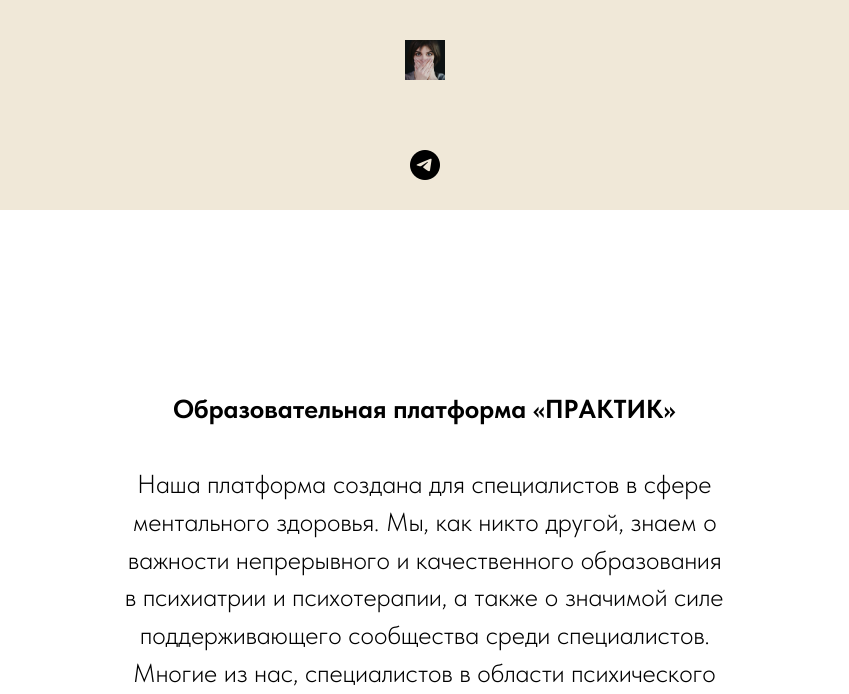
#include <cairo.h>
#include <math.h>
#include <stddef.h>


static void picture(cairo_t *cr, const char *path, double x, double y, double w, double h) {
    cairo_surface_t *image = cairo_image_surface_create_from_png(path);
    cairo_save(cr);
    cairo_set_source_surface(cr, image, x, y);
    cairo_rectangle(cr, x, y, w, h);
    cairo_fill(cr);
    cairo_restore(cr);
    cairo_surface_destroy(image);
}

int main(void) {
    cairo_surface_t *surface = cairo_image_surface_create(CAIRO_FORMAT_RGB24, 849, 694);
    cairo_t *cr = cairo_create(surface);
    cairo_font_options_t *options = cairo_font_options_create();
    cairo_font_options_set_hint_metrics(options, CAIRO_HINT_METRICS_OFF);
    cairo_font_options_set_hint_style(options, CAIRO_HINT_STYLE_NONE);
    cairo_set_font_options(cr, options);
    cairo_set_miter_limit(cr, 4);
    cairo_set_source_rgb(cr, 1, 1, 1);
    cairo_paint(cr);
    cairo_set_source_rgb(cr, 0.941, 0.91, 0.847);
    cairo_rectangle(cr, 0, 0, 849, 210);
    cairo_fill(cr);
    picture(cr, "img1.png", 405, 40, 40, 40);
    picture(cr, "img2.png", 410, 150, 30, 30);
    cairo_select_font_face(cr, "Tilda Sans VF", CAIRO_FONT_SLANT_NORMAL, CAIRO_FONT_WEIGHT_BOLD);
    cairo_set_font_size(cr, 26);
    cairo_set_source_rgb(cr, 0, 0, 0);
    cairo_move_to(cr, 173, 418);
    cairo_show_text(cr, "Образовательная платформа «ПРАКТИК»");
    cairo_select_font_face(cr, "Tilda Sans VF Light", CAIRO_FONT_SLANT_NORMAL, CAIRO_FONT_WEIGHT_NORMAL);
    cairo_move_to(cr, 137, 493);
    cairo_show_text(cr, "Наша платформа создана для специалистов в сфере");
    cairo_move_to(cr, 133, 531);
    cairo_show_text(cr, "ментального здоровья. Мы, как никто другой, знаем о");
    cairo_move_to(cr, 128, 569);
    cairo_show_text(cr, "важности непрерывного и качественного образования");
    cairo_move_to(cr, 125, 606);
    cairo_show_text(cr, "в психиатрии и психотерапии, а также о значимой силе");
    cairo_move_to(cr, 140, 644);
    cairo_show_text(cr, "поддерживающего сообщества среди специалистов.");
    cairo_move_to(cr, 133, 682);
    cairo_show_text(cr, "Многие из нас, специалистов в области психического");
    cairo_surface_write_to_png(surface, "page.png");
    cairo_font_options_destroy(options);
    cairo_destroy(cr);
    cairo_surface_destroy(surface);
    return 0;
}
